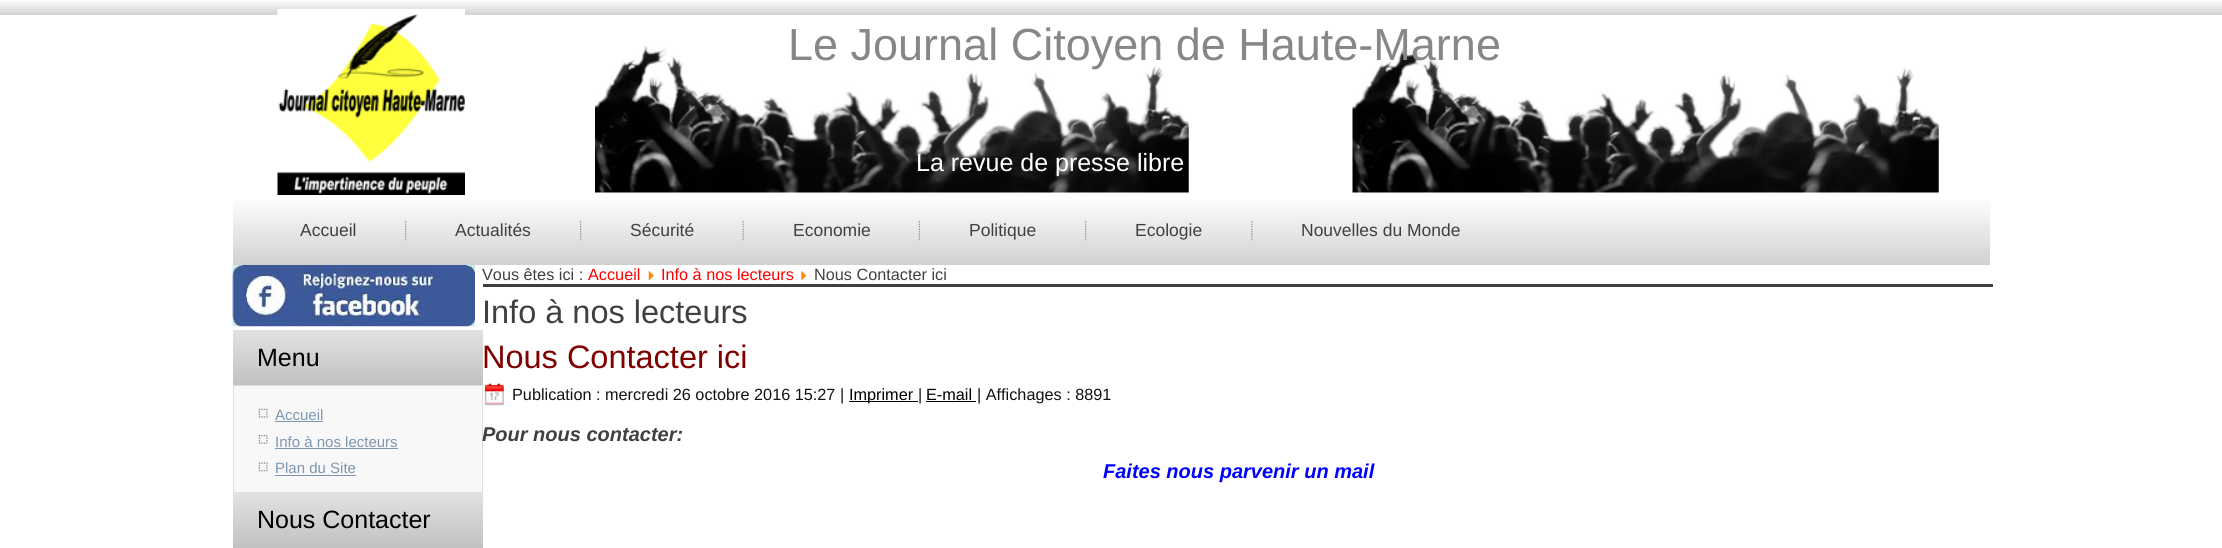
#include <cairo.h>
#include <math.h>
#include <stddef.h>


static void picture(cairo_t *cr, const char *path, double x, double y, double w, double h) {
    cairo_surface_t *image = cairo_image_surface_create_from_png(path);
    cairo_save(cr);
    cairo_set_source_surface(cr, image, x, y);
    cairo_rectangle(cr, x, y, w, h);
    cairo_fill(cr);
    cairo_restore(cr);
    cairo_surface_destroy(image);
}

int main(void) {
    cairo_surface_t *surface = cairo_image_surface_create(CAIRO_FORMAT_RGB24, 2222, 548);
    cairo_t *cr = cairo_create(surface);
    cairo_font_options_t *options = cairo_font_options_create();
    cairo_font_options_set_hint_metrics(options, CAIRO_HINT_METRICS_OFF);
    cairo_font_options_set_hint_style(options, CAIRO_HINT_STYLE_NONE);
    cairo_set_font_options(cr, options);
    cairo_set_miter_limit(cr, 4);
    cairo_pattern_t *gradient;
    cairo_set_source_rgb(cr, 1, 1, 1);
    cairo_paint(cr);
    gradient = cairo_pattern_create_linear(1111, 0, 1111, 15);
    cairo_pattern_add_color_stop_rgba(gradient, 0, 1, 1, 1, 1);
    cairo_pattern_add_color_stop_rgba(gradient, 1, 0.82, 0.82, 0.82, 1);
    cairo_set_source(cr, gradient);
    cairo_pattern_destroy(gradient);
    cairo_rectangle(cr, 0, 1, 2222, 14);
    cairo_fill(cr);
    picture(cr, "img1.png", 277, 9, 188, 186);
    picture(cr, "img2.png", 595, 45, 594, 148);
    picture(cr, "img3.png", 1352, 47, 587, 146);
    cairo_select_font_face(cr, "Liberation Sans", CAIRO_FONT_SLANT_NORMAL, CAIRO_FONT_WEIGHT_NORMAL);
    cairo_set_font_size(cr, 45);
    cairo_set_source_rgb(cr, 0.529, 0.529, 0.529);
    cairo_move_to(cr, 788, 60);
    cairo_show_text(cr, "Le Journal Citoyen de Haute-Marne");
    cairo_set_font_size(cr, 25);
    cairo_set_source_rgb(cr, 1, 1, 1);
    cairo_move_to(cr, 916, 171);
    cairo_show_text(cr, "La revue de presse libre");
    gradient = cairo_pattern_create_linear(1111, 196, 1111, 265);
    cairo_pattern_add_color_stop_rgba(gradient, 0, 1, 1, 1, 1);
    cairo_pattern_add_color_stop_rgba(gradient, 1, 0.82, 0.82, 0.82, 1);
    cairo_set_source(cr, gradient);
    cairo_pattern_destroy(gradient);
    cairo_rectangle(cr, 233, 200, 1757, 65);
    cairo_fill(cr);
    cairo_set_font_size(cr, 17.5);
    cairo_set_source_rgb(cr, 0.251, 0.251, 0.251);
    cairo_move_to(cr, 300, 236);
    cairo_show_text(cr, "Accueil");
    picture(cr, "img4.png", 405, 221, 2, 20);
    cairo_move_to(cr, 455, 236);
    cairo_show_text(cr, "Actualités");
    picture(cr, "img4.png", 580, 221, 2, 20);
    cairo_move_to(cr, 630, 236);
    cairo_show_text(cr, "Sécurité");
    picture(cr, "img5.png", 742, 221, 2, 20);
    cairo_move_to(cr, 793, 236);
    cairo_show_text(cr, "Economie");
    picture(cr, "img6.png", 918, 221, 2, 20);
    cairo_move_to(cr, 969, 236);
    cairo_show_text(cr, "Politique");
    picture(cr, "img4.png", 1085, 221, 2, 20);
    cairo_move_to(cr, 1135, 236);
    cairo_show_text(cr, "Ecologie");
    picture(cr, "img7.png", 1251, 221, 2, 20);
    cairo_move_to(cr, 1301, 236);
    cairo_show_text(cr, "Nouvelles du Monde");
    picture(cr, "img8.png", 232, 265, 243, 62);
    gradient = cairo_pattern_create_linear(358, 330, 358, 385);
    cairo_pattern_add_color_stop_rgba(gradient, 0, 0.886, 0.886, 0.886, 1);
    cairo_pattern_add_color_stop_rgba(gradient, 1, 0.757, 0.757, 0.757, 1);
    cairo_set_source(cr, gradient);
    cairo_pattern_destroy(gradient);
    cairo_rectangle(cr, 233, 330, 250, 55);
    cairo_fill(cr);
    cairo_set_font_size(cr, 25);
    cairo_set_source_rgb(cr, 0, 0, 0);
    cairo_move_to(cr, 257, 366);
    cairo_show_text(cr, "Menu");
    cairo_set_source_rgb(cr, 0.969, 0.969, 0.969);
    cairo_rectangle(cr, 233.5, 385.5, 249, 107);
    cairo_fill_preserve(cr);
    cairo_set_source_rgb(cr, 0.875, 0.875, 0.875);
    cairo_set_line_width(cr, 1);
    cairo_stroke(cr);
    picture(cr, "img9.png", 258, 408, 10, 10);
    cairo_set_font_size(cr, 15);
    cairo_set_source_rgb(cr, 0.486, 0.588, 0.694);
    cairo_move_to(cr, 275, 420);
    cairo_show_text(cr, "Accueil");
    cairo_rectangle(cr, 275, 421, 48, 1);
    cairo_fill(cr);
    picture(cr, "img10.png", 258, 435, 10, 9);
    cairo_move_to(cr, 275, 447);
    cairo_show_text(cr, "Info à nos lecteurs");
    cairo_rectangle(cr, 275, 448, 123, 1);
    cairo_fill(cr);
    picture(cr, "img11.png", 258, 462, 10, 10);
    cairo_move_to(cr, 275, 473);
    cairo_show_text(cr, "Plan du Site");
    cairo_rectangle(cr, 275, 475, 81, 1);
    cairo_fill(cr);
    gradient = cairo_pattern_create_linear(358, 493, 358, 548);
    cairo_pattern_add_color_stop_rgba(gradient, 0, 0.886, 0.886, 0.886, 1);
    cairo_pattern_add_color_stop_rgba(gradient, 1, 0.757, 0.757, 0.757, 1);
    cairo_set_source(cr, gradient);
    cairo_pattern_destroy(gradient);
    cairo_rectangle(cr, 233, 493, 250, 55);
    cairo_fill(cr);
    cairo_set_font_size(cr, 25);
    cairo_set_source_rgb(cr, 0, 0, 0);
    cairo_move_to(cr, 257, 528);
    cairo_show_text(cr, "Nous Contacter");
    cairo_set_font_size(cr, 16.25);
    cairo_set_source_rgb(cr, 0.251, 0.251, 0.251);
    cairo_move_to(cr, 482, 280);
    cairo_show_text(cr, "Vous êtes ici :");
    cairo_set_source_rgb(cr, 1, 0, 0);
    cairo_move_to(cr, 588, 280);
    cairo_show_text(cr, "Accueil");
    picture(cr, "img12.png", 648, 271, 6, 9);
    cairo_move_to(cr, 661, 280);
    cairo_show_text(cr, "Info à nos lecteurs");
    picture(cr, "img13.png", 801, 271, 6, 9);
    cairo_set_source_rgb(cr, 0.251, 0.251, 0.251);
    cairo_move_to(cr, 814, 280);
    cairo_show_text(cr, "Nous Contacter ici");
    cairo_rectangle(cr, 483, 284, 1510, 3);
    cairo_fill(cr);
    cairo_set_font_size(cr, 32.5);
    cairo_move_to(cr, 482, 323);
    cairo_show_text(cr, "Info à nos lecteurs");
    cairo_set_source_rgb(cr, 0.502, 0, 0);
    cairo_move_to(cr, 482, 368);
    cairo_show_text(cr, "Nous Contacter ici");
    picture(cr, "img14.png", 484, 383, 20, 23);
    cairo_set_font_size(cr, 16.25);
    cairo_set_source_rgb(cr, 0.078, 0.078, 0.078);
    cairo_move_to(cr, 512, 400);
    cairo_show_text(cr, "Publication : mercredi 26 octobre 2016 15:27 |");
    cairo_set_source_rgb(cr, 0, 0, 0);
    cairo_rectangle(cr, 849, 401, 69, 1);
    cairo_fill(cr);
    cairo_move_to(cr, 849, 400);
    cairo_show_text(cr, "Imprimer");
    cairo_set_source_rgb(cr, 0.078, 0.078, 0.078);
    cairo_move_to(cr, 918, 400);
    cairo_show_text(cr, "|");
    cairo_set_source_rgb(cr, 0, 0, 0);
    cairo_move_to(cr, 926, 400);
    cairo_show_text(cr, "E-mail");
    cairo_rectangle(cr, 926, 401, 50, 1);
    cairo_fill(cr);
    cairo_set_source_rgb(cr, 0.078, 0.078, 0.078);
    cairo_move_to(cr, 977, 400);
    cairo_show_text(cr, "| Affichages : 8891");
    cairo_select_font_face(cr, "Liberation Sans", CAIRO_FONT_SLANT_ITALIC, CAIRO_FONT_WEIGHT_BOLD);
    cairo_set_font_size(cr, 20);
    cairo_set_source_rgb(cr, 0.251, 0.251, 0.251);
    cairo_move_to(cr, 482, 441);
    cairo_show_text(cr, "Pour nous contacter:");
    cairo_set_source_rgb(cr, 0, 0, 1);
    cairo_move_to(cr, 1103, 478);
    cairo_show_text(cr, "Faites nous parvenir un mail");
    cairo_surface_write_to_png(surface, "page.png");
    cairo_font_options_destroy(options);
    cairo_destroy(cr);
    cairo_surface_destroy(surface);
    return 0;
}
